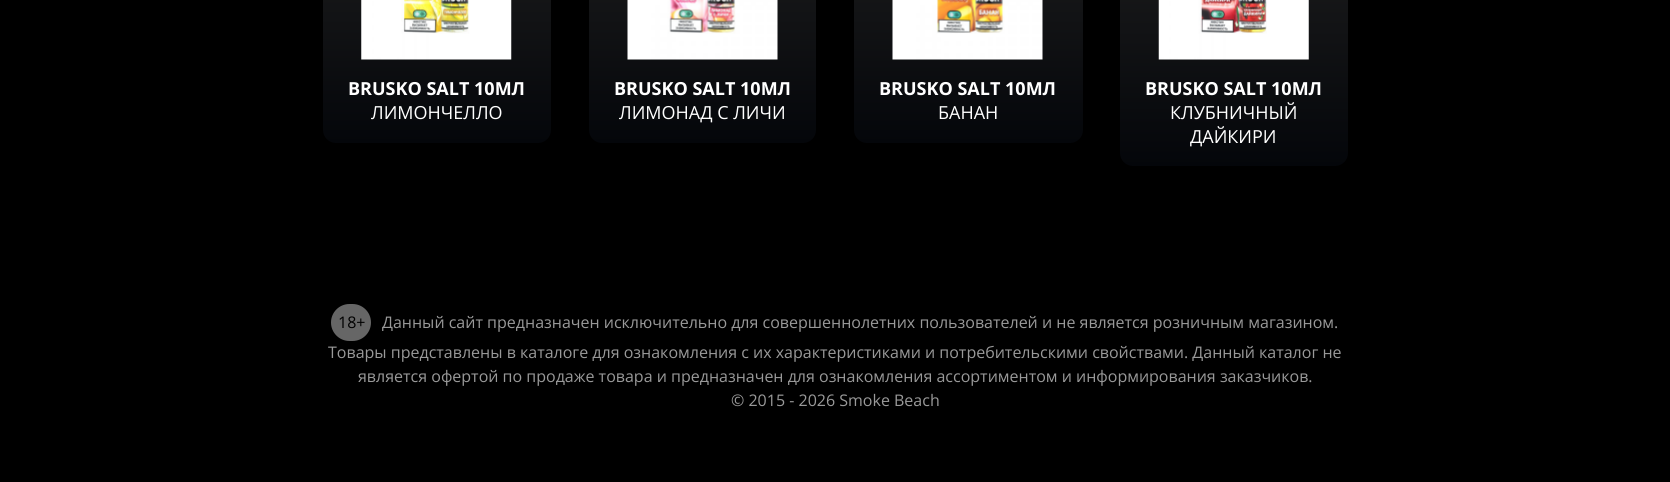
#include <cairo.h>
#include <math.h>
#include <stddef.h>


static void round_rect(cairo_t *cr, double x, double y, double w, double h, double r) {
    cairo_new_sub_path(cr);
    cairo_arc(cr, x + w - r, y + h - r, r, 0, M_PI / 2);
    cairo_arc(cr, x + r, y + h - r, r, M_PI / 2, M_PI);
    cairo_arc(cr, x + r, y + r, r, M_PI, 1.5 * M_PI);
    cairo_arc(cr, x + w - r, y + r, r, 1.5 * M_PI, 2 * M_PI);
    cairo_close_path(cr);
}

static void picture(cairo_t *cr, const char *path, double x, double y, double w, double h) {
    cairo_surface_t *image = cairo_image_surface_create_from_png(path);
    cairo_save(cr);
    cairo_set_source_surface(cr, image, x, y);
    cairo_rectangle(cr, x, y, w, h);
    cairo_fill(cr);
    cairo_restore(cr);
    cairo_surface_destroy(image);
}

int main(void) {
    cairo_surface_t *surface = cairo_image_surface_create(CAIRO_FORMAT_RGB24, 1670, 482);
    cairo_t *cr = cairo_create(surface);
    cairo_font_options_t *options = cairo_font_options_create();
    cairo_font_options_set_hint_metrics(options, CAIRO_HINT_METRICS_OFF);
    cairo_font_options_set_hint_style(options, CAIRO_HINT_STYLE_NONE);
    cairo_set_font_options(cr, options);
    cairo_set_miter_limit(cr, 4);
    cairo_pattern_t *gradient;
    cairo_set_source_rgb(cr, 0, 0, 0);
    cairo_paint(cr);
    gradient = cairo_pattern_create_linear(437, -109, 437, 143);
    cairo_pattern_add_color_stop_rgba(gradient, 0, 0.125, 0.125, 0.125, 1);
    cairo_pattern_add_color_stop_rgba(gradient, 1, 0.016, 0.024, 0.039, 1);
    cairo_set_source(cr, gradient);
    cairo_pattern_destroy(gradient);
    round_rect(cr, 323, -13, 228, 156, 13);
    cairo_fill(cr);
    picture(cr, "img1.png", 361, 0, 151, 60);
    cairo_select_font_face(cr, "Open Sans", CAIRO_FONT_SLANT_NORMAL, CAIRO_FONT_WEIGHT_BOLD);
    cairo_set_font_size(cr, 18);
    cairo_set_source_rgb(cr, 1, 1, 1);
    cairo_move_to(cr, 348, 95);
    cairo_show_text(cr, "BRUSKO SALT 10МЛ");
    cairo_select_font_face(cr, "Open Sans", CAIRO_FONT_SLANT_NORMAL, CAIRO_FONT_WEIGHT_NORMAL);
    cairo_move_to(cr, 371, 119);
    cairo_show_text(cr, "ЛИМОНЧЕЛЛО");
    gradient = cairo_pattern_create_linear(703, -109, 703, 143);
    cairo_pattern_add_color_stop_rgba(gradient, 0, 0.125, 0.125, 0.125, 1);
    cairo_pattern_add_color_stop_rgba(gradient, 1, 0.016, 0.024, 0.039, 1);
    cairo_set_source(cr, gradient);
    cairo_pattern_destroy(gradient);
    round_rect(cr, 589, -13, 227, 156, 13);
    cairo_fill(cr);
    picture(cr, "img2.png", 627, 0, 151, 60);
    cairo_select_font_face(cr, "Open Sans", CAIRO_FONT_SLANT_NORMAL, CAIRO_FONT_WEIGHT_BOLD);
    cairo_set_source_rgb(cr, 1, 1, 1);
    cairo_move_to(cr, 614, 95);
    cairo_show_text(cr, "BRUSKO SALT 10МЛ");
    cairo_select_font_face(cr, "Open Sans", CAIRO_FONT_SLANT_NORMAL, CAIRO_FONT_WEIGHT_NORMAL);
    cairo_move_to(cr, 619, 119);
    cairo_show_text(cr, "ЛИМОНАД С ЛИЧИ");
    gradient = cairo_pattern_create_linear(968, -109, 968, 143);
    cairo_pattern_add_color_stop_rgba(gradient, 0, 0.125, 0.125, 0.125, 1);
    cairo_pattern_add_color_stop_rgba(gradient, 1, 0.016, 0.024, 0.039, 1);
    cairo_set_source(cr, gradient);
    cairo_pattern_destroy(gradient);
    round_rect(cr, 854, -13, 229, 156, 13);
    cairo_fill(cr);
    picture(cr, "img3.png", 892, 0, 151, 60);
    cairo_select_font_face(cr, "Open Sans", CAIRO_FONT_SLANT_NORMAL, CAIRO_FONT_WEIGHT_BOLD);
    cairo_set_source_rgb(cr, 1, 1, 1);
    cairo_move_to(cr, 879, 95);
    cairo_show_text(cr, "BRUSKO SALT 10МЛ");
    cairo_select_font_face(cr, "Open Sans", CAIRO_FONT_SLANT_NORMAL, CAIRO_FONT_WEIGHT_NORMAL);
    cairo_move_to(cr, 938, 119);
    cairo_show_text(cr, "БАНАН");
    gradient = cairo_pattern_create_linear(1234, -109, 1234, 166);
    cairo_pattern_add_color_stop_rgba(gradient, 0, 0.125, 0.125, 0.125, 1);
    cairo_pattern_add_color_stop_rgba(gradient, 1, 0.016, 0.024, 0.039, 1);
    cairo_set_source(cr, gradient);
    cairo_pattern_destroy(gradient);
    round_rect(cr, 1120, -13, 228, 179, 13);
    cairo_fill(cr);
    picture(cr, "img4.png", 1158, 0, 151, 60);
    cairo_select_font_face(cr, "Open Sans", CAIRO_FONT_SLANT_NORMAL, CAIRO_FONT_WEIGHT_BOLD);
    cairo_set_source_rgb(cr, 1, 1, 1);
    cairo_move_to(cr, 1145, 95);
    cairo_show_text(cr, "BRUSKO SALT 10МЛ");
    cairo_select_font_face(cr, "Open Sans", CAIRO_FONT_SLANT_NORMAL, CAIRO_FONT_WEIGHT_NORMAL);
    cairo_move_to(cr, 1170, 119);
    cairo_show_text(cr, "КЛУБНИЧНЫЙ");
    cairo_move_to(cr, 1190, 143);
    cairo_show_text(cr, "ДАЙКИРИ");
    cairo_set_source_rgb(cr, 0.4, 0.4, 0.4);
    round_rect(cr, 331, 304, 40, 37, 18.5);
    cairo_fill(cr);
    cairo_set_font_size(cr, 16);
    cairo_set_source_rgb(cr, 0, 0, 0);
    cairo_move_to(cr, 338, 328);
    cairo_show_text(cr, "18+");
    cairo_set_source_rgb(cr, 0.6, 0.6, 0.6);
    cairo_move_to(cr, 382, 328);
    cairo_show_text(cr, "Данный сайт предназначен исключительно для совершеннолетних пользователей и не является розничным магазином.");
    cairo_move_to(cr, 328, 358);
    cairo_show_text(cr, "Товары представлены в каталоге для ознакомления с их характеристиками и потребительскими свойствами. Данный каталог не");
    cairo_move_to(cr, 358, 382);
    cairo_show_text(cr, "является офертой по продаже товара и предназначен для ознакомления ассортиментом и информирования заказчиков.");
    cairo_move_to(cr, 731, 406);
    cairo_show_text(cr, "© 2015 - 2026 Smoke Beach");
    cairo_surface_write_to_png(surface, "page.png");
    cairo_font_options_destroy(options);
    cairo_destroy(cr);
    cairo_surface_destroy(surface);
    return 0;
}
